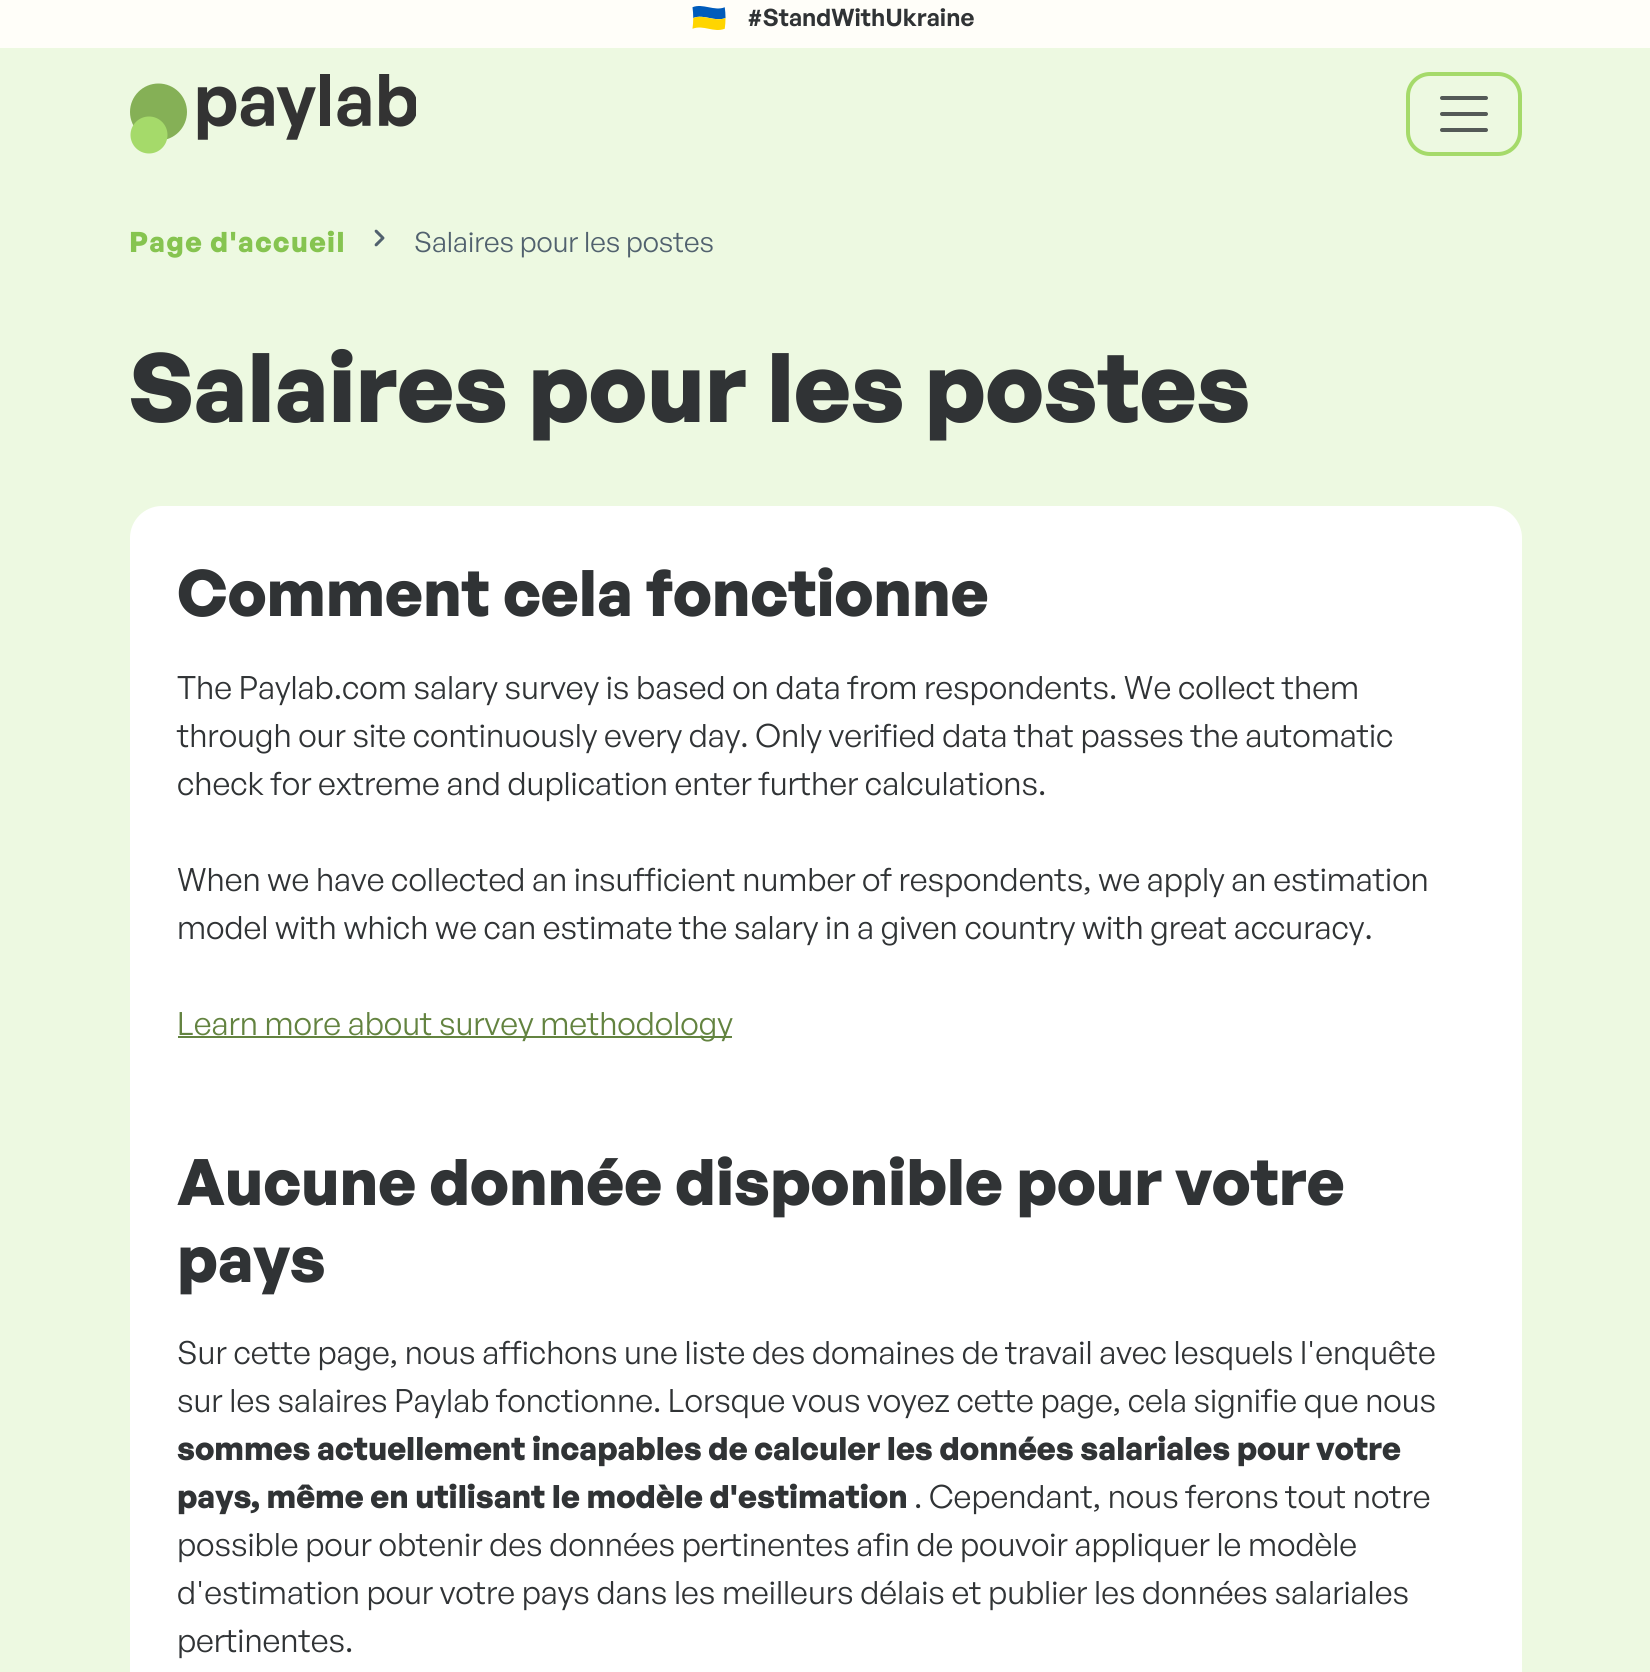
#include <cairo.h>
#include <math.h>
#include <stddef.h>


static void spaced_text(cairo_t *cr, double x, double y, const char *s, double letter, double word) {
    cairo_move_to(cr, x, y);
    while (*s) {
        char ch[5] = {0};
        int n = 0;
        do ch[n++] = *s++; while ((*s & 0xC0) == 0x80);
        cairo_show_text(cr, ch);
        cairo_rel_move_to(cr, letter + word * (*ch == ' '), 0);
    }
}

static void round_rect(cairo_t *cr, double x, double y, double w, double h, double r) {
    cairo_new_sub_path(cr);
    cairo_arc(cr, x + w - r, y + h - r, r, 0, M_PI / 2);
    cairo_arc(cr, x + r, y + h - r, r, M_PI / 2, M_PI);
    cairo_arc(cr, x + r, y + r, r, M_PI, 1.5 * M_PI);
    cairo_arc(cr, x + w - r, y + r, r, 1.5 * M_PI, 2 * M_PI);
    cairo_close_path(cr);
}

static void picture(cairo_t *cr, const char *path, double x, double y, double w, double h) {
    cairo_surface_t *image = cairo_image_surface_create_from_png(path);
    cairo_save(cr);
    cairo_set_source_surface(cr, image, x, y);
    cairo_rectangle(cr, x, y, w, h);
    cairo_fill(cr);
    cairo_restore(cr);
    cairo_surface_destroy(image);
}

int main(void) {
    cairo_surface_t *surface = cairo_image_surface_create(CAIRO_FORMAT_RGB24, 1650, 1672);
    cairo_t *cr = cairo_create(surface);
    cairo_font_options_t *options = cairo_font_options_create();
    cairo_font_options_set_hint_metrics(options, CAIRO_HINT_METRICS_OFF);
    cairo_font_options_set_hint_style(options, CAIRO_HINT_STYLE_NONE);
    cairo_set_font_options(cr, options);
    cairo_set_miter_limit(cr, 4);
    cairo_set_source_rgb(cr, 0.929, 0.973, 0.882);
    cairo_paint(cr);
    cairo_set_source_rgb(cr, 1, 0.996, 0.973);
    cairo_rectangle(cr, 0, 0, 1650, 48);
    cairo_fill(cr);
    picture(cr, "img1.png", 692, 6, 34, 24);
    cairo_select_font_face(cr, "General Sans SemiBold", CAIRO_FONT_SLANT_NORMAL, CAIRO_FONT_WEIGHT_NORMAL);
    cairo_set_font_size(cr, 24);
    cairo_set_source_rgb(cr, 0.188, 0.2, 0.208);
    cairo_move_to(cr, 747, 26);
    cairo_show_text(cr, "#StandWithUkraine");
    picture(cr, "img2.png", 130, 74, 286, 80);
    round_rect(cr, 1408, 74, 112, 80, 22);
    cairo_set_source_rgb(cr, 0.647, 0.855, 0.416);
    cairo_set_line_width(cr, 4);
    cairo_stroke(cr);
    cairo_new_path(cr);
    cairo_move_to(cr, 1442, 98);
    cairo_line_to(cr, 1486, 98);
    cairo_move_to(cr, 1442, 114);
    cairo_line_to(cr, 1486, 114);
    cairo_move_to(cr, 1442, 130);
    cairo_line_to(cr, 1486, 130);
    cairo_set_source_rgb(cr, 0.329, 0.353, 0.341);
    cairo_set_line_cap(cr, CAIRO_LINE_CAP_ROUND);
    cairo_stroke(cr);
    cairo_select_font_face(cr, "General Sans", CAIRO_FONT_SLANT_NORMAL, CAIRO_FONT_WEIGHT_BOLD);
    cairo_set_font_size(cr, 28);
    cairo_set_source_rgb(cr, 0.525, 0.769, 0.314);
    spaced_text(cr, 129, 252, "Page d'accueil", 1.4, 0);
    picture(cr, "img3.png", 374, 229, 11, 18);
    cairo_select_font_face(cr, "General Sans", CAIRO_FONT_SLANT_NORMAL, CAIRO_FONT_WEIGHT_NORMAL);
    cairo_set_source_rgb(cr, 0.318, 0.38, 0.431);
    cairo_move_to(cr, 414, 252);
    cairo_show_text(cr, "Salaires pour les postes");
    cairo_select_font_face(cr, "General Sans", CAIRO_FONT_SLANT_NORMAL, CAIRO_FONT_WEIGHT_BOLD);
    cairo_set_font_size(cr, 96);
    cairo_set_source_rgb(cr, 0.188, 0.2, 0.208);
    cairo_move_to(cr, 129, 422);
    cairo_show_text(cr, "Salaires pour les postes");
    cairo_set_source_rgb(cr, 1, 1, 1);
    round_rect(cr, 130, 506, 1392, 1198, 32);
    cairo_fill(cr);
    cairo_set_font_size(cr, 64);
    cairo_set_source_rgb(cr, 0.188, 0.2, 0.208);
    cairo_move_to(cr, 177, 616);
    cairo_show_text(cr, "Comment cela fonctionne");
    cairo_select_font_face(cr, "General Sans", CAIRO_FONT_SLANT_NORMAL, CAIRO_FONT_WEIGHT_NORMAL);
    cairo_set_font_size(cr, 32);
    cairo_move_to(cr, 177, 699);
    cairo_show_text(cr, "The Paylab.com salary survey is based on data from respondents. We collect them");
    cairo_move_to(cr, 177, 747);
    cairo_show_text(cr, "through our site continuously every day. Only verified data that passes the automatic");
    cairo_move_to(cr, 177, 795);
    cairo_show_text(cr, "check for extreme and duplication enter further calculations.");
    cairo_move_to(cr, 177, 891);
    cairo_show_text(cr, "When we have collected an insufficient number of respondents, we apply an estimation");
    cairo_move_to(cr, 177, 939);
    cairo_show_text(cr, "model with which we can estimate the salary in a given country with great accuracy.");
    cairo_set_source_rgb(cr, 0.388, 0.514, 0.251);
    cairo_rectangle(cr, 178, 1036, 554, 2);
    cairo_fill(cr);
    cairo_move_to(cr, 177, 1035);
    cairo_show_text(cr, "Learn more about survey methodology");
    cairo_select_font_face(cr, "General Sans", CAIRO_FONT_SLANT_NORMAL, CAIRO_FONT_WEIGHT_BOLD);
    cairo_set_font_size(cr, 64);
    cairo_set_source_rgb(cr, 0.188, 0.2, 0.208);
    cairo_move_to(cr, 177, 1205);
    cairo_show_text(cr, "Aucune donnée disponible pour votre");
    cairo_move_to(cr, 177, 1282);
    cairo_show_text(cr, "pays");
    cairo_select_font_face(cr, "General Sans", CAIRO_FONT_SLANT_NORMAL, CAIRO_FONT_WEIGHT_NORMAL);
    cairo_set_font_size(cr, 32);
    cairo_move_to(cr, 177, 1364);
    cairo_show_text(cr, "Sur cette page, nous affichons une liste des domaines de travail avec lesquels l'enquête");
    cairo_move_to(cr, 177, 1412);
    cairo_show_text(cr, "sur les salaires Paylab fonctionne. Lorsque vous voyez cette page, cela signifie que nous");
    cairo_select_font_face(cr, "General Sans", CAIRO_FONT_SLANT_NORMAL, CAIRO_FONT_WEIGHT_BOLD);
    cairo_move_to(cr, 177, 1460);
    cairo_show_text(cr, "sommes actuellement incapables de calculer les données salariales pour votre");
    cairo_move_to(cr, 177, 1508);
    cairo_show_text(cr, "pays, même en utilisant le modèle d'estimation");
    cairo_select_font_face(cr, "General Sans", CAIRO_FONT_SLANT_NORMAL, CAIRO_FONT_WEIGHT_NORMAL);
    cairo_move_to(cr, 914, 1508);
    cairo_show_text(cr, ". Cependant, nous ferons tout notre");
    cairo_move_to(cr, 177, 1556);
    cairo_show_text(cr, "possible pour obtenir des données pertinentes afin de pouvoir appliquer le modèle");
    cairo_move_to(cr, 177, 1604);
    cairo_show_text(cr, "d'estimation pour votre pays dans les meilleurs délais et publier les données salariales");
    cairo_move_to(cr, 177, 1652);
    cairo_show_text(cr, "pertinentes.");
    cairo_surface_write_to_png(surface, "page.png");
    cairo_font_options_destroy(options);
    cairo_destroy(cr);
    cairo_surface_destroy(surface);
    return 0;
}
